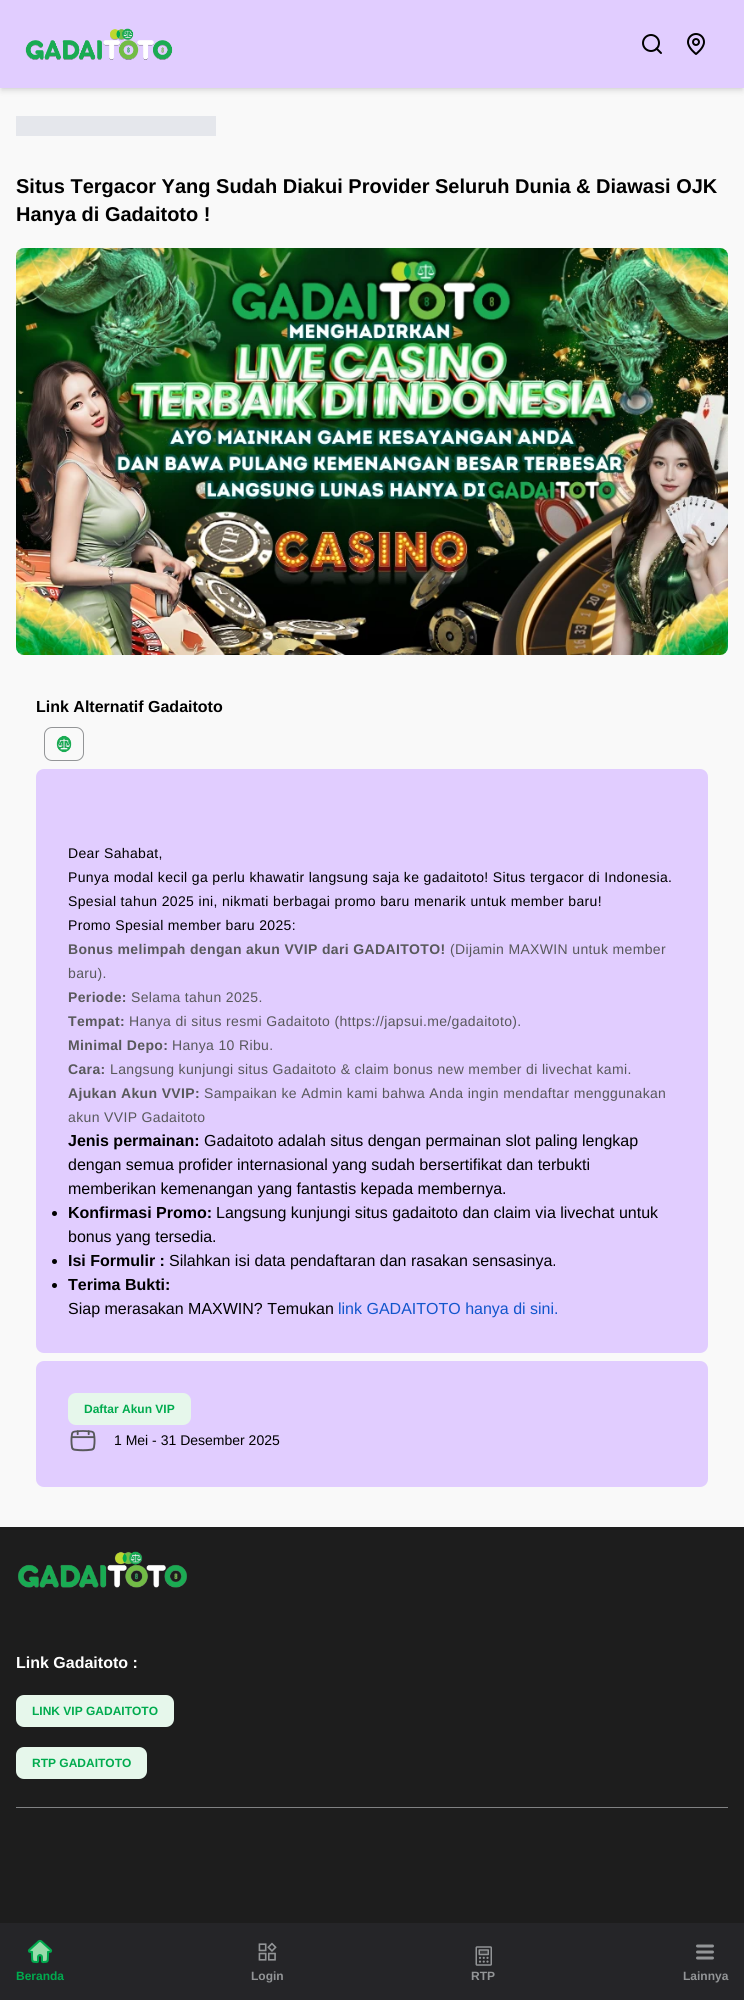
#include <cairo.h>
#include <math.h>
#include <stddef.h>


static void spaced_text(cairo_t *cr, double x, double y, const char *s, double letter, double word) {
    cairo_move_to(cr, x, y);
    while (*s) {
        char ch[5] = {0};
        int n = 0;
        do ch[n++] = *s++; while ((*s & 0xC0) == 0x80);
        cairo_show_text(cr, ch);
        cairo_rel_move_to(cr, letter + word * (*ch == ' '), 0);
    }
}

static void round_rect(cairo_t *cr, double x, double y, double w, double h, double r) {
    cairo_new_sub_path(cr);
    cairo_arc(cr, x + w - r, y + h - r, r, 0, M_PI / 2);
    cairo_arc(cr, x + r, y + h - r, r, M_PI / 2, M_PI);
    cairo_arc(cr, x + r, y + r, r, M_PI, 1.5 * M_PI);
    cairo_arc(cr, x + w - r, y + r, r, 1.5 * M_PI, 2 * M_PI);
    cairo_close_path(cr);
}

static void shadow(cairo_t *cr, double x, double y, double w, double h, double r, double blur, double alpha) {
    cairo_push_group_with_content(cr, CAIRO_CONTENT_ALPHA);
    cairo_set_operator(cr, CAIRO_OPERATOR_SOURCE);
    for (int i = 15; i >= -15 && fmin(w, h) + blur * i / 3 > 0; i -= 2) {
        double e = blur * i / 6;
        cairo_set_source_rgba(cr, 0, 0, 0, alpha * erfc((i - 1) / 8.5) / 2);
        round_rect(cr, x - e, y - e, w + 2 * e, h + 2 * e, fmax(0, fmin(r + e + blur * .6, fmin(w, h) / 2 + e)));
        cairo_fill(cr);
    }
    cairo_pattern_t *soft = cairo_pop_group(cr);
    cairo_mask(cr, soft);
    cairo_pattern_destroy(soft);
}

static void picture(cairo_t *cr, const char *path, double x, double y, double w, double h) {
    cairo_surface_t *image = cairo_image_surface_create_from_png(path);
    cairo_save(cr);
    cairo_set_source_surface(cr, image, x, y);
    cairo_rectangle(cr, x, y, w, h);
    cairo_fill(cr);
    cairo_restore(cr);
    cairo_surface_destroy(image);
}

int main(void) {
    cairo_surface_t *surface = cairo_image_surface_create(CAIRO_FORMAT_RGB24, 744, 2000);
    cairo_t *cr = cairo_create(surface);
    cairo_font_options_t *options = cairo_font_options_create();
    cairo_font_options_set_hint_metrics(options, CAIRO_HINT_METRICS_OFF);
    cairo_font_options_set_hint_style(options, CAIRO_HINT_STYLE_NONE);
    cairo_set_font_options(cr, options);
    cairo_set_miter_limit(cr, 4);
    cairo_set_source_rgb(cr, 0.973, 0.973, 0.973);
    cairo_paint(cr);
    cairo_set_source_rgb(cr, 0, 0, 0);
    shadow(cr, 2, 4, 740, 84, 0, 2, 0.1);
    shadow(cr, 1, 5, 742, 86, 0, 3, 0.1);
    cairo_set_source_rgb(cr, 0.882, 0.804, 1);
    cairo_rectangle(cr, 0, 0, 744, 88);
    cairo_fill(cr);
    picture(cr, "img1.png", 25, 28, 148, 32);
    cairo_arc(cr, 651, 43, 8, 0, 2 * M_PI);
    cairo_set_source_rgb(cr, 0, 0, 0);
    cairo_stroke(cr);
    cairo_new_path(cr);
    cairo_move_to(cr, 661, 53);
    cairo_line_to(cr, 656.5, 48.5);
    cairo_set_line_cap(cr, CAIRO_LINE_CAP_ROUND);
    cairo_set_line_join(cr, CAIRO_LINE_JOIN_ROUND);
    cairo_stroke(cr);
    picture(cr, "img2.png", 687, 33, 18, 22);
    cairo_set_source_rgb(cr, 0.898, 0.906, 0.922);
    cairo_rectangle(cr, 16, 116, 200, 20);
    cairo_fill(cr);
    cairo_select_font_face(cr, "Liberation Sans", CAIRO_FONT_SLANT_NORMAL, CAIRO_FONT_WEIGHT_BOLD);
    cairo_set_font_size(cr, 20);
    cairo_set_source_rgb(cr, 0, 0, 0);
    cairo_move_to(cr, 16, 193);
    cairo_show_text(cr, "Situs Tergacor Yang Sudah Diakui Provider Seluruh Dunia & Diawasi OJK");
    cairo_move_to(cr, 16, 221);
    cairo_show_text(cr, "Hanya di Gadaitoto !");
    picture(cr, "img3.png", 16, 248, 712, 407);
    cairo_set_font_size(cr, 16);
    cairo_move_to(cr, 36, 712);
    cairo_show_text(cr, "Link Alternatif Gadaitoto");
    round_rect(cr, 44.5, 727.5, 39, 33, 7.5);
    cairo_set_source_rgb(cr, 0.576, 0.584, 0.592);
    cairo_set_line_width(cr, 1);
    cairo_set_line_cap(cr, CAIRO_LINE_CAP_BUTT);
    cairo_set_line_join(cr, CAIRO_LINE_JOIN_MITER);
    cairo_stroke(cr);
    picture(cr, "img4.png", 56, 735, 16, 18);
    cairo_set_source_rgb(cr, 0.882, 0.804, 1);
    round_rect(cr, 36, 769, 672, 584, 8);
    cairo_fill(cr);
    cairo_select_font_face(cr, "Liberation Sans", CAIRO_FONT_SLANT_NORMAL, CAIRO_FONT_WEIGHT_NORMAL);
    cairo_set_font_size(cr, 14);
    cairo_set_source_rgb(cr, 0, 0, 0);
    spaced_text(cr, 68, 858, "Dear Sahabat,", 0.35, 0);
    spaced_text(cr, 68, 882, "Punya modal kecil ga perlu khawatir langsung saja ke gadaitoto! Situs tergacor di Indonesia.", 0.35, 0);
    spaced_text(cr, 68, 906, "Spesial tahun 2025 ini, nikmati berbagai promo baru menarik untuk member baru!", 0.35, 0);
    spaced_text(cr, 68, 930, "Promo Spesial member baru 2025:", 0.35, 0);
    cairo_select_font_face(cr, "Liberation Sans", CAIRO_FONT_SLANT_NORMAL, CAIRO_FONT_WEIGHT_BOLD);
    cairo_set_source_rgb(cr, 0.345, 0.345, 0.357);
    spaced_text(cr, 68, 954, "Bonus melimpah dengan akun VVIP dari GADAITOTO!", 0.35, 0);
    cairo_select_font_face(cr, "Liberation Sans", CAIRO_FONT_SLANT_NORMAL, CAIRO_FONT_WEIGHT_NORMAL);
    spaced_text(cr, 450, 954, "(Dijamin MAXWIN untuk member", 0.35, 0);
    spaced_text(cr, 68, 978, "baru).", 0.35, 0);
    cairo_select_font_face(cr, "Liberation Sans", CAIRO_FONT_SLANT_NORMAL, CAIRO_FONT_WEIGHT_BOLD);
    spaced_text(cr, 68, 1002, "Periode:", 0.35, 0);
    cairo_select_font_face(cr, "Liberation Sans", CAIRO_FONT_SLANT_NORMAL, CAIRO_FONT_WEIGHT_NORMAL);
    spaced_text(cr, 131, 1002, "Selama tahun 2025.", 0.35, 0);
    cairo_select_font_face(cr, "Liberation Sans", CAIRO_FONT_SLANT_NORMAL, CAIRO_FONT_WEIGHT_BOLD);
    spaced_text(cr, 68, 1026, "Tempat:", 0.35, 0);
    cairo_select_font_face(cr, "Liberation Sans", CAIRO_FONT_SLANT_NORMAL, CAIRO_FONT_WEIGHT_NORMAL);
    spaced_text(cr, 129, 1026, "Hanya di situs resmi Gadaitoto (https://japsui.me/gadaitoto).", 0.35, 0);
    cairo_select_font_face(cr, "Liberation Sans", CAIRO_FONT_SLANT_NORMAL, CAIRO_FONT_WEIGHT_BOLD);
    spaced_text(cr, 68, 1050, "Minimal Depo:", 0.35, 0);
    cairo_select_font_face(cr, "Liberation Sans", CAIRO_FONT_SLANT_NORMAL, CAIRO_FONT_WEIGHT_NORMAL);
    spaced_text(cr, 172, 1050, "Hanya 10 Ribu.", 0.35, 0);
    cairo_select_font_face(cr, "Liberation Sans", CAIRO_FONT_SLANT_NORMAL, CAIRO_FONT_WEIGHT_BOLD);
    spaced_text(cr, 68, 1074, "Cara:", 0.35, 0);
    cairo_select_font_face(cr, "Liberation Sans", CAIRO_FONT_SLANT_NORMAL, CAIRO_FONT_WEIGHT_NORMAL);
    spaced_text(cr, 110, 1074, "Langsung kunjungi situs Gadaitoto & claim bonus new member di livechat kami.", 0.35, 0);
    cairo_select_font_face(cr, "Liberation Sans", CAIRO_FONT_SLANT_NORMAL, CAIRO_FONT_WEIGHT_BOLD);
    spaced_text(cr, 68, 1098, "Ajukan Akun VVIP:", 0.35, 0);
    cairo_select_font_face(cr, "Liberation Sans", CAIRO_FONT_SLANT_NORMAL, CAIRO_FONT_WEIGHT_NORMAL);
    spaced_text(cr, 204, 1098, "Sampaikan ke Admin kami bahwa Anda ingin mendaftar menggunakan", 0.35, 0);
    spaced_text(cr, 68, 1122, "akun VVIP Gadaitoto", 0.35, 0);
    cairo_select_font_face(cr, "Liberation Sans", CAIRO_FONT_SLANT_NORMAL, CAIRO_FONT_WEIGHT_BOLD);
    cairo_set_font_size(cr, 16);
    cairo_set_source_rgb(cr, 0, 0, 0);
    cairo_move_to(cr, 68, 1146);
    cairo_show_text(cr, "Jenis permainan:");
    cairo_select_font_face(cr, "Liberation Sans", CAIRO_FONT_SLANT_NORMAL, CAIRO_FONT_WEIGHT_NORMAL);
    cairo_move_to(cr, 204, 1146);
    cairo_show_text(cr, "Gadaitoto adalah situs dengan permainan slot paling lengkap");
    cairo_move_to(cr, 68, 1170);
    cairo_show_text(cr, "dengan semua profider internasional yang sudah bersertifikat dan terbukti");
    cairo_move_to(cr, 68, 1194);
    cairo_show_text(cr, "memberikan kemenangan yang fantastis kepada membernya.");
    cairo_new_path(cr);
    cairo_arc(cr, 54.5, 1213.5, 2.5, 0, 2 * M_PI);
    cairo_fill(cr);
    cairo_select_font_face(cr, "Liberation Sans", CAIRO_FONT_SLANT_NORMAL, CAIRO_FONT_WEIGHT_BOLD);
    cairo_move_to(cr, 68, 1218);
    cairo_show_text(cr, "Konfirmasi Promo:");
    cairo_select_font_face(cr, "Liberation Sans", CAIRO_FONT_SLANT_NORMAL, CAIRO_FONT_WEIGHT_NORMAL);
    cairo_move_to(cr, 216, 1218);
    cairo_show_text(cr, "Langsung kunjungi situs gadaitoto dan claim via livechat untuk");
    cairo_move_to(cr, 68, 1242);
    cairo_show_text(cr, "bonus yang tersedia.");
    cairo_new_path(cr);
    cairo_arc(cr, 54.5, 1261.5, 2.5, 0, 2 * M_PI);
    cairo_fill(cr);
    cairo_select_font_face(cr, "Liberation Sans", CAIRO_FONT_SLANT_NORMAL, CAIRO_FONT_WEIGHT_BOLD);
    cairo_move_to(cr, 68, 1266);
    cairo_show_text(cr, "Isi Formulir :");
    cairo_select_font_face(cr, "Liberation Sans", CAIRO_FONT_SLANT_NORMAL, CAIRO_FONT_WEIGHT_NORMAL);
    cairo_move_to(cr, 169, 1266);
    cairo_show_text(cr, "Silahkan isi data pendaftaran dan rasakan sensasinya.");
    cairo_new_path(cr);
    cairo_arc(cr, 54.5, 1285.5, 2.5, 0, 2 * M_PI);
    cairo_fill(cr);
    cairo_select_font_face(cr, "Liberation Sans", CAIRO_FONT_SLANT_NORMAL, CAIRO_FONT_WEIGHT_BOLD);
    cairo_move_to(cr, 68, 1290);
    cairo_show_text(cr, "Terima Bukti:");
    cairo_select_font_face(cr, "Liberation Sans", CAIRO_FONT_SLANT_NORMAL, CAIRO_FONT_WEIGHT_NORMAL);
    cairo_move_to(cr, 68, 1314);
    cairo_show_text(cr, "Siap merasakan MAXWIN? Temukan");
    cairo_set_source_rgb(cr, 0.067, 0.333, 0.8);
    cairo_move_to(cr, 338, 1314);
    cairo_show_text(cr, "link GADAITOTO hanya di sini.");
    cairo_set_source_rgb(cr, 0.882, 0.804, 1);
    round_rect(cr, 36, 1361, 672, 126, 8);
    cairo_fill(cr);
    cairo_set_source_rgb(cr, 0.902, 0.965, 0.918);
    round_rect(cr, 68, 1393, 123, 32, 8);
    cairo_fill(cr);
    cairo_select_font_face(cr, "Liberation Sans", CAIRO_FONT_SLANT_NORMAL, CAIRO_FONT_WEIGHT_BOLD);
    cairo_set_font_size(cr, 12);
    cairo_set_source_rgb(cr, 0, 0.671, 0.306);
    cairo_move_to(cr, 84, 1413);
    cairo_show_text(cr, "Daftar Akun VIP");
    picture(cr, "img5.png", 70, 1430, 26, 22);
    cairo_select_font_face(cr, "Liberation Sans", CAIRO_FONT_SLANT_NORMAL, CAIRO_FONT_WEIGHT_NORMAL);
    cairo_set_font_size(cr, 14);
    cairo_set_source_rgb(cr, 0, 0, 0);
    cairo_move_to(cr, 114, 1445);
    cairo_show_text(cr, "1 Mei - 31 Desember 2025");
    cairo_set_source_rgb(cr, 0.114, 0.114, 0.114);
    cairo_rectangle(cr, 0, 1527, 744, 396);
    cairo_fill(cr);
    picture(cr, "img6.png", 18, 1551, 169, 37);
    cairo_select_font_face(cr, "Liberation Sans", CAIRO_FONT_SLANT_NORMAL, CAIRO_FONT_WEIGHT_BOLD);
    cairo_set_font_size(cr, 16);
    cairo_set_source_rgb(cr, 1, 1, 1);
    cairo_move_to(cr, 16, 1668);
    cairo_show_text(cr, "Link Gadaitoto :");
    cairo_set_source_rgb(cr, 0.902, 0.965, 0.918);
    round_rect(cr, 16, 1695, 158, 32, 8);
    cairo_fill(cr);
    cairo_set_font_size(cr, 12);
    cairo_set_source_rgb(cr, 0, 0.671, 0.306);
    cairo_move_to(cr, 32, 1715);
    cairo_show_text(cr, "LINK VIP GADAITOTO");
    cairo_set_source_rgb(cr, 0.902, 0.965, 0.918);
    round_rect(cr, 16, 1747, 131, 32, 8);
    cairo_fill(cr);
    cairo_set_source_rgb(cr, 0, 0.671, 0.306);
    cairo_move_to(cr, 32, 1767);
    cairo_show_text(cr, "RTP GADAITOTO");
    cairo_set_source_rgb(cr, 0.506, 0.51, 0.518);
    cairo_rectangle(cr, 16, 1807, 712, 1);
    cairo_fill(cr);
    cairo_set_source_rgb(cr, 0.145, 0.145, 0.157);
    cairo_rectangle(cr, 0, 1923, 744, 77);
    cairo_fill(cr);
    picture(cr, "img7.png", 27, 1939, 26, 25);
    cairo_set_source_rgb(cr, 0, 0.671, 0.306);
    cairo_move_to(cr, 16, 1980);
    cairo_show_text(cr, "Beranda");
    picture(cr, "img8.png", 258, 1942, 19, 19);
    cairo_set_source_rgb(cr, 0.576, 0.584, 0.592);
    cairo_move_to(cr, 251, 1980);
    cairo_show_text(cr, "Login");
    picture(cr, "img9.png", 475, 1946, 17, 20);
    cairo_move_to(cr, 471, 1980);
    cairo_show_text(cr, "RTP");
    picture(cr, "img10.png", 696, 1944, 18, 16);
    cairo_move_to(cr, 683, 1980);
    cairo_show_text(cr, "Lainnya");
    cairo_surface_write_to_png(surface, "page.png");
    cairo_font_options_destroy(options);
    cairo_destroy(cr);
    cairo_surface_destroy(surface);
    return 0;
}
